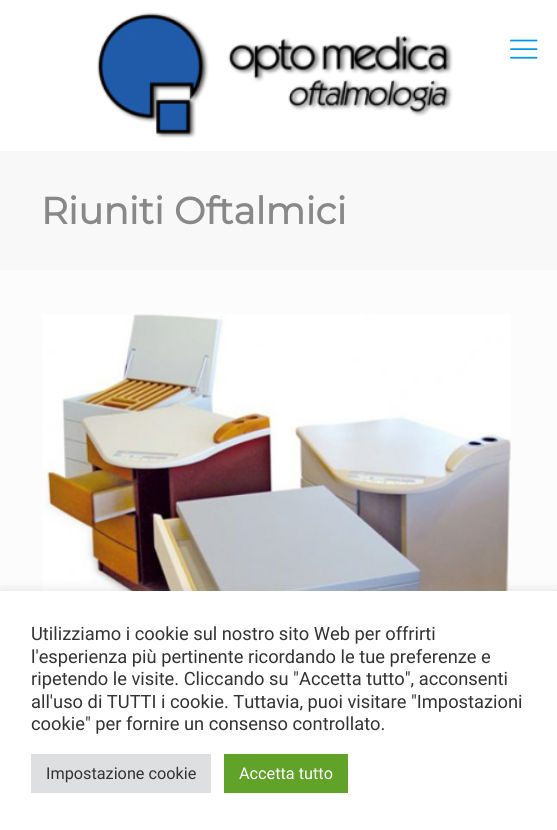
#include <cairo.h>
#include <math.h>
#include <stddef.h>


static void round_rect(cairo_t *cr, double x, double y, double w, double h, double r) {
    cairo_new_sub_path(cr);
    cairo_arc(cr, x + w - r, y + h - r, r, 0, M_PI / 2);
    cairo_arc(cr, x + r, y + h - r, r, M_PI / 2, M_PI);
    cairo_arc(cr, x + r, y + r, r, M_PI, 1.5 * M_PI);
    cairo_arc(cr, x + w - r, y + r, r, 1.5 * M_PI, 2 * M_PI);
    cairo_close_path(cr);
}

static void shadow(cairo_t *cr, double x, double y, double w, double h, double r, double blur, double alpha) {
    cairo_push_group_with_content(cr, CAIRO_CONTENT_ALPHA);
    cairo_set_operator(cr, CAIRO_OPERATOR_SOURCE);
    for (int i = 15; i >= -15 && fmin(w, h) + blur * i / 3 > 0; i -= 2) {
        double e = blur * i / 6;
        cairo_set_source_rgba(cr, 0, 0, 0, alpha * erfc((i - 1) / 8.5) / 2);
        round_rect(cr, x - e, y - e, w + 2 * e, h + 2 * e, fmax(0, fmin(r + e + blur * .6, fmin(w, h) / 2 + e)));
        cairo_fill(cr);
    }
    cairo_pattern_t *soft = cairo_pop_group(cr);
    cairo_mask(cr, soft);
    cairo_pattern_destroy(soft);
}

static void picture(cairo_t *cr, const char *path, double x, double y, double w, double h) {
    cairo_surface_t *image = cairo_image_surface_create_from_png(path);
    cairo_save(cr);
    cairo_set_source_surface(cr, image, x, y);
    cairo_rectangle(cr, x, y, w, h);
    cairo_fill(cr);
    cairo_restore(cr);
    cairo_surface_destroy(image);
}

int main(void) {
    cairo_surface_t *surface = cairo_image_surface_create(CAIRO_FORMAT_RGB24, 557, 830);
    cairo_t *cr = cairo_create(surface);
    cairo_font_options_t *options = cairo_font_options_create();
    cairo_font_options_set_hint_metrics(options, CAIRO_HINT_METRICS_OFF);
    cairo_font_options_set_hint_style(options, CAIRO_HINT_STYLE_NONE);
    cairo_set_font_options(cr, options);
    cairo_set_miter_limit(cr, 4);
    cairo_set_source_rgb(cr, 0.988, 0.988, 0.988);
    cairo_paint(cr);
    cairo_set_source_rgb(cr, 1, 1, 1);
    cairo_rectangle(cr, 0, 0, 557, 151);
    cairo_fill(cr);
    picture(cr, "img1.png", 97, 12, 356, 126);
    picture(cr, "img2.png", 510, 39, 28, 20);
    cairo_set_source_rgb(cr, 0.969, 0.969, 0.969);
    cairo_rectangle(cr, 0, 151, 557, 119);
    cairo_fill(cr);
    cairo_select_font_face(cr, "Montserrat", CAIRO_FONT_SLANT_NORMAL, CAIRO_FONT_WEIGHT_BOLD);
    cairo_set_font_size(cr, 37.5);
    cairo_set_source_rgb(cr, 0.533, 0.533, 0.533);
    cairo_move_to(cr, 41, 224);
    cairo_show_text(cr, "Riuniti Oftalmici");
    picture(cr, "img3.png", 42, 314, 469, 277);
    cairo_set_source_rgb(cr, 0.675, 0.671, 0.671);
    shadow(cr, 0, 590, 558, 239, 0, 6, 0.3);
    cairo_set_source_rgb(cr, 1, 1, 1);
    cairo_rectangle(cr, 0, 591, 557, 239);
    cairo_fill(cr);
    cairo_select_font_face(cr, "Roboto", CAIRO_FONT_SLANT_NORMAL, CAIRO_FONT_WEIGHT_NORMAL);
    cairo_set_font_size(cr, 18.3);
    cairo_set_source_rgb(cr, 0.2, 0.2, 0.2);
    cairo_move_to(cr, 31, 640);
    cairo_show_text(cr, "Utilizziamo i cookie sul nostro sito Web per offrirti");
    cairo_move_to(cr, 31, 663);
    cairo_show_text(cr, "l'esperienza più pertinente ricordando le tue preferenze e");
    cairo_move_to(cr, 31, 685);
    cairo_show_text(cr, "ripetendo le visite. Cliccando su \"Accetta tutto\", acconsenti");
    cairo_move_to(cr, 31, 708);
    cairo_show_text(cr, "all'uso di TUTTI i cookie. Tuttavia, puoi visitare \"Impostazioni");
    cairo_move_to(cr, 31, 730);
    cairo_show_text(cr, "cookie\" per fornire un consenso controllato.");
    cairo_set_source_rgb(cr, 0.871, 0.875, 0.878);
    cairo_rectangle(cr, 31, 754, 180, 39);
    cairo_fill(cr);
    cairo_set_font_size(cr, 16.25);
    cairo_set_source_rgb(cr, 0.2, 0.2, 0.2);
    cairo_move_to(cr, 46, 779);
    cairo_show_text(cr, "Impostazione cookie");
    cairo_set_source_rgb(cr, 0.38, 0.635, 0.161);
    cairo_rectangle(cr, 224, 754, 124, 39);
    cairo_fill(cr);
    cairo_set_source_rgb(cr, 1, 1, 1);
    cairo_move_to(cr, 239, 779);
    cairo_show_text(cr, "Accetta tutto");
    cairo_surface_write_to_png(surface, "page.png");
    cairo_font_options_destroy(options);
    cairo_destroy(cr);
    cairo_surface_destroy(surface);
    return 0;
}
